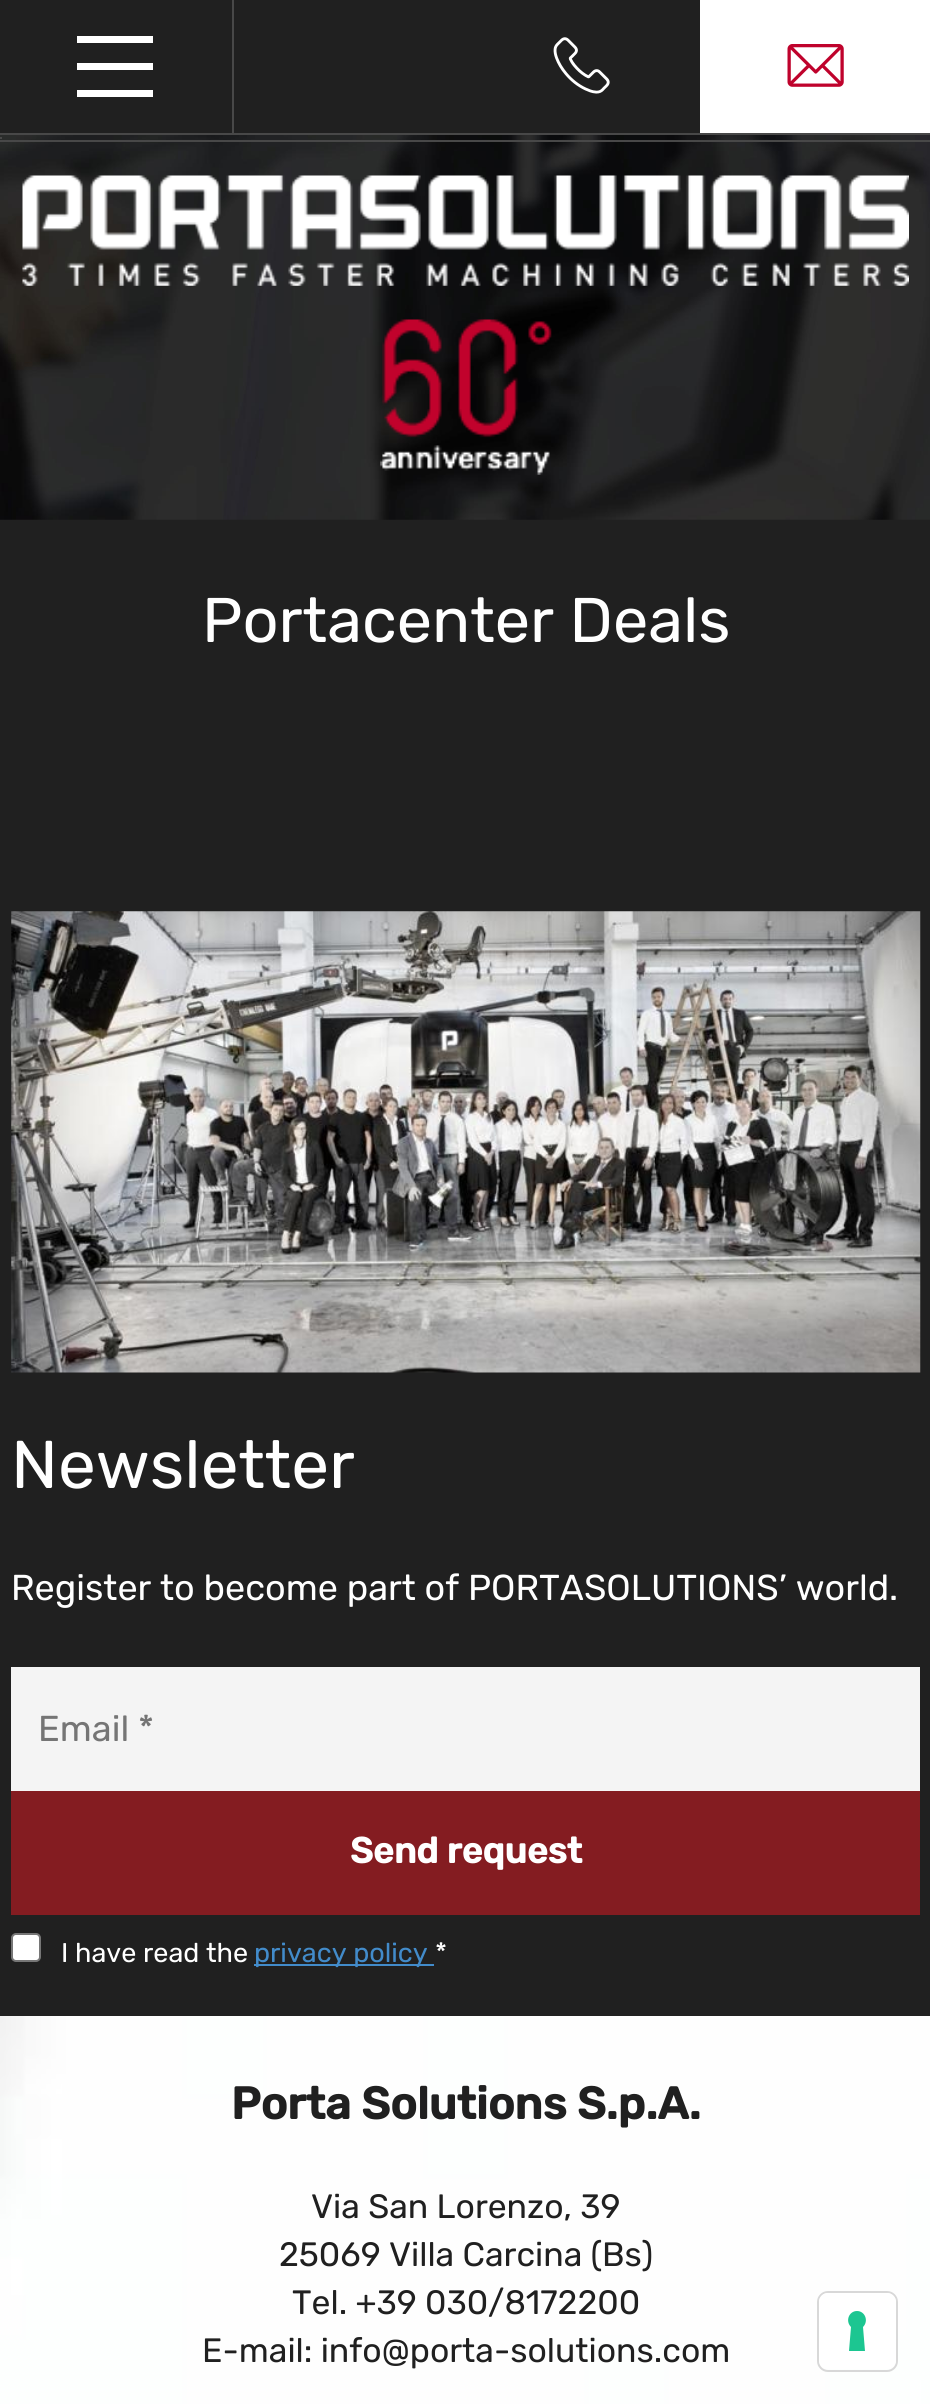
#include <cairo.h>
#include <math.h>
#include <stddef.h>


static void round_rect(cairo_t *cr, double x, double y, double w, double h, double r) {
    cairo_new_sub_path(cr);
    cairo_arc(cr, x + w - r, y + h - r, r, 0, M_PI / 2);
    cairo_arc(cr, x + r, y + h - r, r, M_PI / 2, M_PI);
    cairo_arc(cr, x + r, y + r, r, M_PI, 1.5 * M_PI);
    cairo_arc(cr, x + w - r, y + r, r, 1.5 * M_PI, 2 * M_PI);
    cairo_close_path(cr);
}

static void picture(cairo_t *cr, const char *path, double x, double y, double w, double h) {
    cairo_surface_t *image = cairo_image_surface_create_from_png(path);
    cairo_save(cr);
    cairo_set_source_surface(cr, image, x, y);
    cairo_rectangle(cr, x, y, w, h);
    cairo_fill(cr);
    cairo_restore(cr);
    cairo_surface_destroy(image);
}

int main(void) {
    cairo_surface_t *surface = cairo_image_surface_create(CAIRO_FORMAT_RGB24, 930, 2404);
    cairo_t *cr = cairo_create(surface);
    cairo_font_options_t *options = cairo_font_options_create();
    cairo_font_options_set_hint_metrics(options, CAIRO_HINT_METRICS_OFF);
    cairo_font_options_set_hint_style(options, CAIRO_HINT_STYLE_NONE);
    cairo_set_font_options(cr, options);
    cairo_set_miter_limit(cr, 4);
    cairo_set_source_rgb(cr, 0.125, 0.125, 0.125);
    cairo_paint(cr);
    picture(cr, "img1.png", 0, 135, 930, 385);
    cairo_set_source_rgb(cr, 0.282, 0.282, 0.282);
    cairo_rectangle(cr, 0, 140, 930, 2);
    cairo_fill(cr);
    cairo_rectangle(cr, 0, 133, 930, 2);
    cairo_fill(cr);
    cairo_rectangle(cr, 232, 0, 2, 133);
    cairo_fill(cr);
    cairo_set_source_rgb(cr, 1, 1, 1);
    cairo_rectangle(cr, 77, 36, 76, 7);
    cairo_fill(cr);
    cairo_rectangle(cr, 77, 63, 76, 7);
    cairo_fill(cr);
    cairo_rectangle(cr, 77, 90, 76, 7);
    cairo_fill(cr);
    picture(cr, "img2.png", 553, 37, 57, 57);
    cairo_rectangle(cr, 700, 0, 230, 133);
    cairo_fill(cr);
    picture(cr, "img3.png", 787, 44, 57, 43);
    cairo_set_source_rgb(cr, 0.282, 0.282, 0.282);
    cairo_rectangle(cr, 0, 137, 2, 2);
    cairo_fill(cr);
    picture(cr, "img4.png", 22, 175, 887, 111);
    picture(cr, "img5.png", 380, 319, 172, 156);
    cairo_select_font_face(cr, "Rubik", CAIRO_FONT_SLANT_NORMAL, CAIRO_FONT_WEIGHT_NORMAL);
    cairo_set_font_size(cr, 63);
    cairo_set_source_rgb(cr, 1, 1, 1);
    cairo_move_to(cr, 202, 642);
    cairo_show_text(cr, "Portacenter Deals");
    picture(cr, "img6.png", 11, 911, 910, 462);
    cairo_set_font_size(cr, 67.5);
    cairo_move_to(cr, 11, 1488);
    cairo_show_text(cr, "Newsletter");
    cairo_set_font_size(cr, 36);
    cairo_move_to(cr, 11, 1600);
    cairo_show_text(cr, "Register to become part of PORTASOLUTIONS’ world.");
    cairo_set_source_rgb(cr, 0.957, 0.957, 0.957);
    cairo_rectangle(cr, 11, 1667, 909, 124);
    cairo_fill(cr);
    cairo_set_source_rgb(cr, 0.459, 0.459, 0.459);
    cairo_move_to(cr, 38, 1741);
    cairo_show_text(cr, "Email *");
    cairo_set_source_rgb(cr, 0.518, 0.11, 0.129);
    cairo_rectangle(cr, 11, 1791, 909, 124);
    cairo_fill(cr);
    cairo_select_font_face(cr, "Rubik", CAIRO_FONT_SLANT_NORMAL, CAIRO_FONT_WEIGHT_BOLD);
    cairo_set_source_rgb(cr, 1, 1, 1);
    cairo_move_to(cr, 350, 1863);
    cairo_show_text(cr, "Send request");
    round_rect(cr, 12, 1934, 28, 27, 4);
    cairo_fill_preserve(cr);
    cairo_set_source_rgb(cr, 0.463, 0.463, 0.463);
    cairo_stroke(cr);
    cairo_select_font_face(cr, "Rubik", CAIRO_FONT_SLANT_NORMAL, CAIRO_FONT_WEIGHT_NORMAL);
    cairo_set_font_size(cr, 27);
    cairo_set_source_rgb(cr, 1, 1, 1);
    cairo_move_to(cr, 61, 1962);
    cairo_show_text(cr, "I have read the");
    cairo_set_source_rgb(cr, 0.259, 0.545, 0.792);
    cairo_rectangle(cr, 254, 1964, 180, 2);
    cairo_fill(cr);
    cairo_move_to(cr, 254, 1962);
    cairo_show_text(cr, "privacy policy");
    cairo_set_source_rgb(cr, 1, 1, 1);
    cairo_move_to(cr, 435, 1962);
    cairo_show_text(cr, "*");
    picture(cr, "img7.png", 0, 2016, 930, 388);
    cairo_select_font_face(cr, "Rubik", CAIRO_FONT_SLANT_NORMAL, CAIRO_FONT_WEIGHT_BOLD);
    cairo_set_font_size(cr, 45);
    cairo_set_source_rgb(cr, 0.125, 0.125, 0.125);
    cairo_move_to(cr, 231, 2119);
    cairo_show_text(cr, "Porta Solutions S.p.A.");
    cairo_select_font_face(cr, "Rubik", CAIRO_FONT_SLANT_NORMAL, CAIRO_FONT_WEIGHT_NORMAL);
    cairo_set_font_size(cr, 33.75);
    cairo_move_to(cr, 311, 2218);
    cairo_show_text(cr, "Via San Lorenzo, 39");
    cairo_move_to(cr, 279, 2266);
    cairo_show_text(cr, "25069 Villa Carcina (Bs)");
    cairo_move_to(cr, 292, 2314);
    cairo_show_text(cr, "Tel. +39 030/8172200");
    cairo_move_to(cr, 202, 2362);
    cairo_show_text(cr, "E-mail: info@porta-solutions.com");
    round_rect(cr, 818, 2292, 79, 79, 10);
    cairo_set_source_rgb(cr, 0.847, 0.847, 0.847);
    cairo_stroke(cr);
    cairo_set_source_rgb(cr, 1, 1, 1);
    round_rect(cr, 819, 2293, 77, 76, 9);
    cairo_fill(cr);
    cairo_set_source_rgb(cr, 0.11, 0.776, 0.569);
    cairo_set_fill_rule(cr, CAIRO_FILL_RULE_EVEN_ODD);
    cairo_new_path(cr);
    cairo_move_to(cr, 857, 2311);
    cairo_curve_to(cr, 865, 2311, 869, 2321, 863, 2327);
    cairo_line_to(cr, 865, 2351);
    cairo_line_to(cr, 849, 2351);
    cairo_line_to(cr, 851, 2327);
    cairo_curve_to(cr, 845, 2321, 849, 2311, 857, 2311);
    cairo_close_path(cr);
    cairo_fill(cr);
    cairo_surface_write_to_png(surface, "page.png");
    cairo_font_options_destroy(options);
    cairo_destroy(cr);
    cairo_surface_destroy(surface);
    return 0;
}
